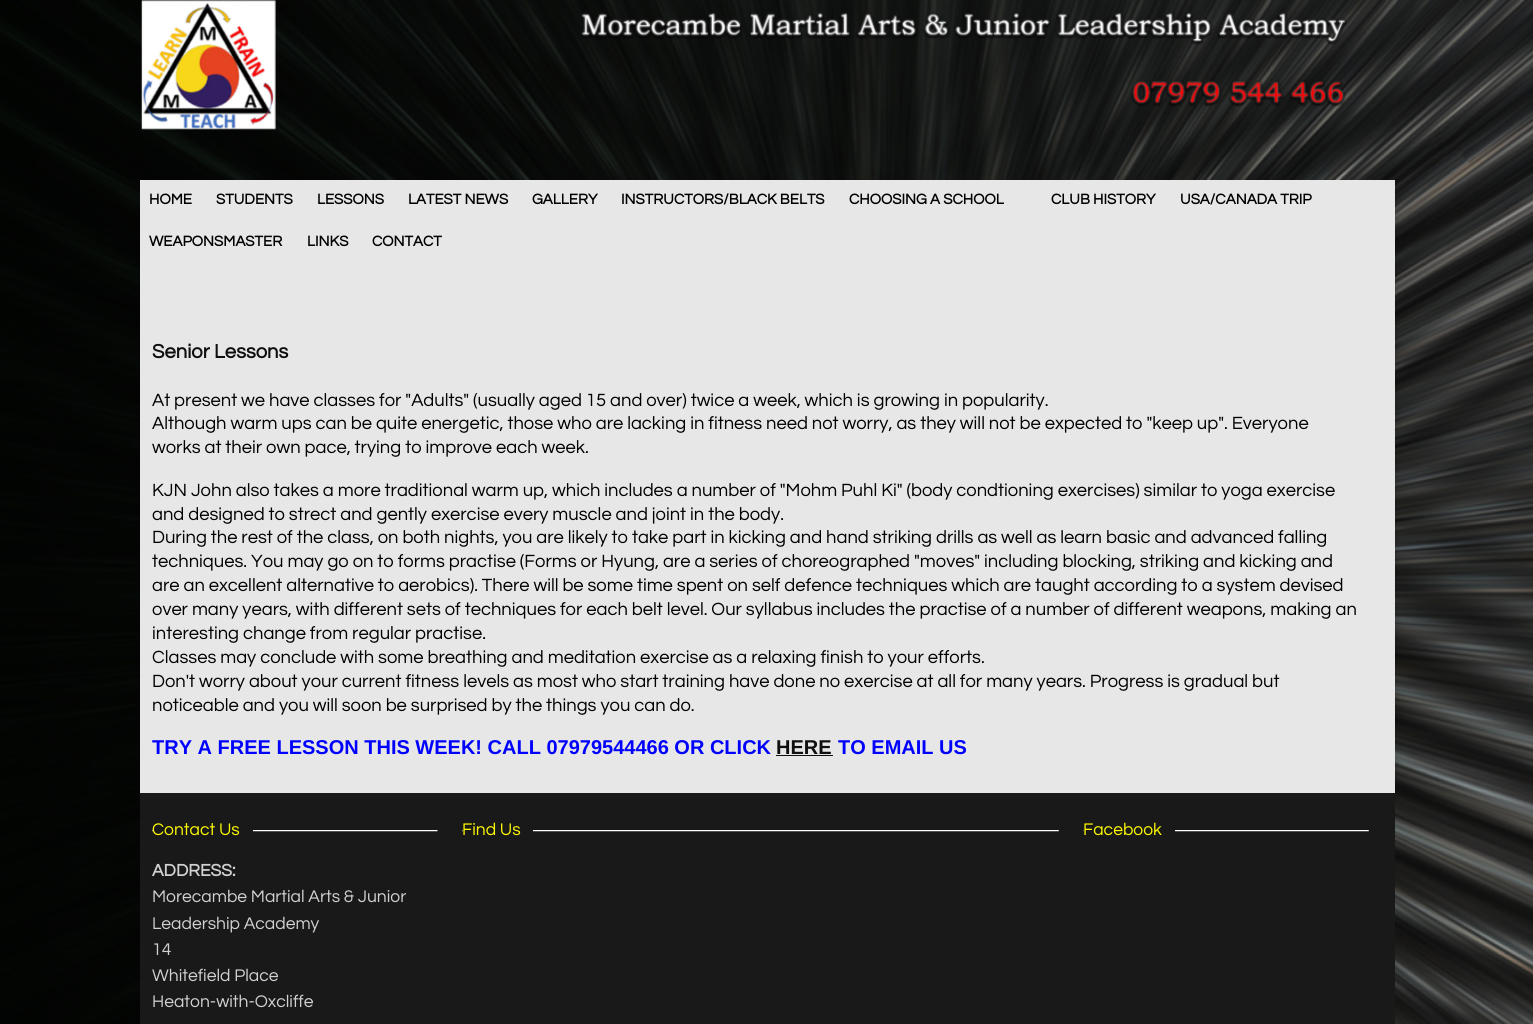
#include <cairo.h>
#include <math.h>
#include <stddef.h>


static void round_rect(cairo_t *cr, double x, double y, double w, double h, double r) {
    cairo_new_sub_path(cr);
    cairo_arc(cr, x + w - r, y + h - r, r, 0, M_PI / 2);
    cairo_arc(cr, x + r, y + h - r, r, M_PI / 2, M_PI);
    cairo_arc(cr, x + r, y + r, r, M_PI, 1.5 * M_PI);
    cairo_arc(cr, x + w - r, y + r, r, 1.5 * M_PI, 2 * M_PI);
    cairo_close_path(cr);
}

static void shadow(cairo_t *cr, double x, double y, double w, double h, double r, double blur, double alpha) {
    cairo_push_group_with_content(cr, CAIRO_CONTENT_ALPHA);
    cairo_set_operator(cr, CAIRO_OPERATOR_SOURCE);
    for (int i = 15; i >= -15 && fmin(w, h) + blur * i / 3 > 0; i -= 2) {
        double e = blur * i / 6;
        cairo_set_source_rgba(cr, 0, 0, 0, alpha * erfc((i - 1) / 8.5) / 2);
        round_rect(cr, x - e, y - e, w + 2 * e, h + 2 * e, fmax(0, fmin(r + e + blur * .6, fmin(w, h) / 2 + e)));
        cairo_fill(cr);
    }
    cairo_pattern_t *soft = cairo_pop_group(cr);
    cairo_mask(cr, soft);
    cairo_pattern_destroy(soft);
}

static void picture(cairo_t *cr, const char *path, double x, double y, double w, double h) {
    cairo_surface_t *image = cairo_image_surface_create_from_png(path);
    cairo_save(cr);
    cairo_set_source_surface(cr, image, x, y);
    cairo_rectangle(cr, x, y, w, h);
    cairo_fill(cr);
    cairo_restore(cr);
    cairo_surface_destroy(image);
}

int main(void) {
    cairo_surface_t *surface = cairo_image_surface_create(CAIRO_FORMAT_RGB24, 1533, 1024);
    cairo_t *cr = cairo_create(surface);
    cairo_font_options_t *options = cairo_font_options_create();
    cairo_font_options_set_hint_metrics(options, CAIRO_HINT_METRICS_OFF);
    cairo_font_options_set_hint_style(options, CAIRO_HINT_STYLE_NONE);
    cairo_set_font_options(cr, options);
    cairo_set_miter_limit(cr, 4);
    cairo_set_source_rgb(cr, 1, 1, 1);
    cairo_paint(cr);
    picture(cr, "img1.png", 0, 0, 1533, 1024);
    cairo_set_source_rgb(cr, 0, 0, 0);
    shadow(cr, 140, 186, 1255, 613, 0, 4, 0.2);
    cairo_set_source_rgb(cr, 0.906, 0.906, 0.906);
    cairo_rectangle(cr, 140, 180, 1255, 613);
    cairo_fill(cr);
    picture(cr, "img2.png", 141, 0, 135, 130);
    picture(cr, "img3.png", 581, 12, 767, 95);
    cairo_select_font_face(cr, "Questrial", CAIRO_FONT_SLANT_NORMAL, CAIRO_FONT_WEIGHT_BOLD);
    cairo_set_font_size(cr, 15);
    cairo_set_source_rgb(cr, 0, 0, 0);
    cairo_move_to(cr, 149, 204);
    cairo_show_text(cr, "HOME");
    cairo_move_to(cr, 216, 204);
    cairo_show_text(cr, "STUDENTS");
    cairo_move_to(cr, 317, 204);
    cairo_show_text(cr, "LESSONS");
    cairo_move_to(cr, 408, 204);
    cairo_show_text(cr, "LATEST NEWS");
    cairo_move_to(cr, 532, 204);
    cairo_show_text(cr, "GALLERY");
    cairo_move_to(cr, 621, 204);
    cairo_show_text(cr, "INSTRUCTORS/BLACK BELTS");
    cairo_move_to(cr, 849, 204);
    cairo_show_text(cr, "CHOOSING A SCHOOL");
    cairo_move_to(cr, 1051, 204);
    cairo_show_text(cr, "CLUB HISTORY");
    cairo_move_to(cr, 1180, 204);
    cairo_show_text(cr, "USA/CANADA TRIP");
    cairo_move_to(cr, 149, 246);
    cairo_show_text(cr, "WEAPONSMASTER");
    cairo_move_to(cr, 307, 246);
    cairo_show_text(cr, "LINKS");
    cairo_move_to(cr, 372, 246);
    cairo_show_text(cr, "CONTACT");
    cairo_set_font_size(cr, 20.25);
    cairo_set_source_rgb(cr, 0.059, 0.059, 0.059);
    cairo_move_to(cr, 152, 358);
    cairo_show_text(cr, "Senior Lessons");
    cairo_select_font_face(cr, "Questrial", CAIRO_FONT_SLANT_NORMAL, CAIRO_FONT_WEIGHT_NORMAL);
    cairo_set_font_size(cr, 18.4);
    cairo_set_source_rgb(cr, 0, 0, 0);
    cairo_move_to(cr, 152, 406);
    cairo_show_text(cr, "At present we have classes for \"Adults\" (usually aged 15 and over) twice a week, which is growing in popularity.");
    cairo_move_to(cr, 152, 429);
    cairo_show_text(cr, "Although warm ups can be quite energetic, those who are lacking in fitness need not worry, as they will not be expected to \"keep up\". Everyone");
    cairo_move_to(cr, 152, 453);
    cairo_show_text(cr, "works at their own pace, trying to improve each week.");
    cairo_move_to(cr, 152, 496);
    cairo_show_text(cr, "KJN John also takes a more traditional warm up, which includes a number of \"Mohm Puhl Ki\" (body condtioning exercises) similar to yoga exercise");
    cairo_move_to(cr, 152, 520);
    cairo_show_text(cr, "and designed to strect and gently exercise every muscle and joint in the body.");
    cairo_move_to(cr, 152, 543);
    cairo_show_text(cr, "During the rest of the class, on both nights, you are likely to take part in kicking and hand striking drills as well as learn basic and advanced falling");
    cairo_move_to(cr, 152, 567);
    cairo_show_text(cr, "techniques. You may go on to forms practise (Forms or Hyung, are a series of choreographed \"moves\" including blocking, striking and kicking and");
    cairo_move_to(cr, 152, 591);
    cairo_show_text(cr, "are an excellent alternative to aerobics). There will be some time spent on self defence techniques which are taught according to a system devised");
    cairo_move_to(cr, 152, 615);
    cairo_show_text(cr, "over many years, with different sets of techniques for each belt level. Our syllabus includes the practise of a number of different weapons, making an");
    cairo_move_to(cr, 152, 639);
    cairo_show_text(cr, "interesting change from regular practise.");
    cairo_move_to(cr, 152, 663);
    cairo_show_text(cr, "Classes may conclude with some breathing and meditation exercise as a relaxing finish to your efforts.");
    cairo_move_to(cr, 152, 687);
    cairo_show_text(cr, "Don't worry about your current fitness levels as most who start training have done no exercise at all for many years. Progress is gradual but");
    cairo_move_to(cr, 152, 711);
    cairo_show_text(cr, "noticeable and you will soon be surprised by the things you can do.");
    cairo_select_font_face(cr, "Liberation Sans", CAIRO_FONT_SLANT_NORMAL, CAIRO_FONT_WEIGHT_BOLD);
    cairo_set_font_size(cr, 20);
    cairo_set_source_rgb(cr, 0, 0, 1);
    cairo_move_to(cr, 152, 754);
    cairo_show_text(cr, "TRY A FREE LESSON THIS WEEK! CALL 07979544466 OR CLICK");
    cairo_set_source_rgb(cr, 0.059, 0.059, 0.059);
    cairo_move_to(cr, 776, 754);
    cairo_show_text(cr, "HERE");
    cairo_rectangle(cr, 776, 755, 57, 1);
    cairo_fill(cr);
    cairo_set_source_rgb(cr, 0, 0, 1);
    cairo_move_to(cr, 838, 754);
    cairo_show_text(cr, "TO EMAIL US");
    cairo_set_source_rgb(cr, 0.098, 0.098, 0.098);
    cairo_rectangle(cr, 140, 793, 1255, 231);
    cairo_fill(cr);
    picture(cr, "img4.png", 152, 830, 286, 2);
    cairo_rectangle(cr, 153, 830, 100, 2);
    cairo_fill(cr);
    cairo_select_font_face(cr, "Questrial", CAIRO_FONT_SLANT_NORMAL, CAIRO_FONT_WEIGHT_NORMAL);
    cairo_set_font_size(cr, 17.5);
    cairo_set_source_rgb(cr, 0.996, 0.98, 0.004);
    cairo_move_to(cr, 152, 835);
    cairo_show_text(cr, "Contact Us");
    cairo_select_font_face(cr, "Questrial", CAIRO_FONT_SLANT_NORMAL, CAIRO_FONT_WEIGHT_BOLD);
    cairo_set_source_rgb(cr, 0.82, 0.82, 0.82);
    cairo_move_to(cr, 152, 876);
    cairo_show_text(cr, "ADDRESS:");
    cairo_select_font_face(cr, "Questrial", CAIRO_FONT_SLANT_NORMAL, CAIRO_FONT_WEIGHT_NORMAL);
    cairo_move_to(cr, 152, 902);
    cairo_show_text(cr, "Morecambe Martial Arts & Junior");
    cairo_move_to(cr, 152, 929);
    cairo_show_text(cr, "Leadership Academy");
    cairo_move_to(cr, 152, 955);
    cairo_show_text(cr, "14");
    cairo_move_to(cr, 152, 981);
    cairo_show_text(cr, "Whitefield Place");
    cairo_move_to(cr, 152, 1007);
    cairo_show_text(cr, "Heaton-with-Oxcliffe");
    picture(cr, "img5.png", 462, 830, 597, 2);
    cairo_set_source_rgb(cr, 0.098, 0.098, 0.098);
    cairo_rectangle(cr, 463, 830, 70, 2);
    cairo_fill(cr);
    cairo_set_source_rgb(cr, 0.996, 0.98, 0.004);
    cairo_move_to(cr, 462, 835);
    cairo_show_text(cr, "Find Us");
    picture(cr, "img6.png", 1083, 830, 286, 2);
    cairo_set_source_rgb(cr, 0.098, 0.098, 0.098);
    cairo_rectangle(cr, 1084, 830, 91, 2);
    cairo_fill(cr);
    cairo_set_source_rgb(cr, 0.996, 0.98, 0.004);
    cairo_move_to(cr, 1083, 835);
    cairo_show_text(cr, "Facebook");
    cairo_surface_write_to_png(surface, "page.png");
    cairo_font_options_destroy(options);
    cairo_destroy(cr);
    cairo_surface_destroy(surface);
    return 0;
}
